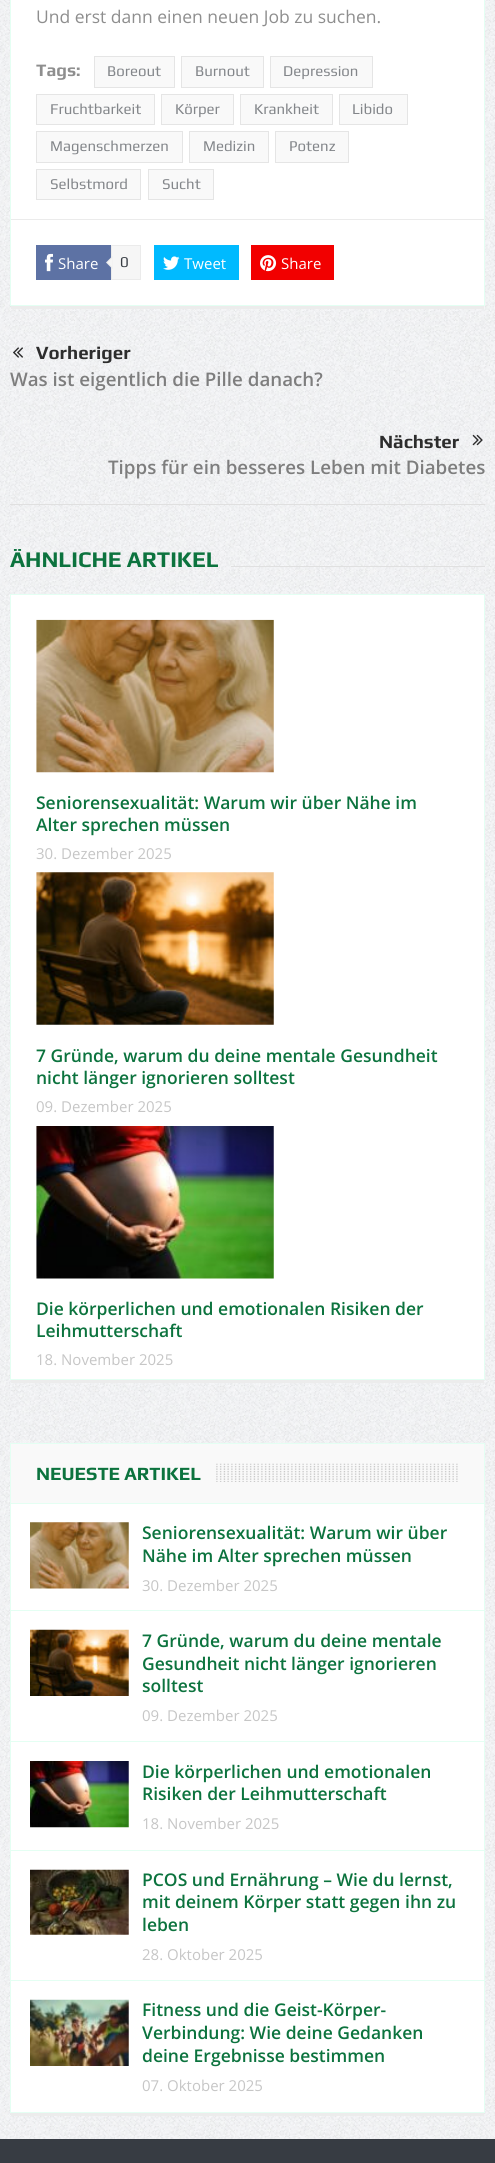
#include <cairo.h>
#include <math.h>
#include <stddef.h>


static void picture(cairo_t *cr, const char *path, double x, double y, double w, double h) {
    cairo_surface_t *image = cairo_image_surface_create_from_png(path);
    cairo_save(cr);
    cairo_set_source_surface(cr, image, x, y);
    cairo_rectangle(cr, x, y, w, h);
    cairo_fill(cr);
    cairo_restore(cr);
    cairo_surface_destroy(image);
}

int main(void) {
    cairo_surface_t *surface = cairo_image_surface_create(CAIRO_FORMAT_RGB24, 495, 2163);
    cairo_t *cr = cairo_create(surface);
    cairo_font_options_t *options = cairo_font_options_create();
    cairo_font_options_set_hint_metrics(options, CAIRO_HINT_METRICS_OFF);
    cairo_font_options_set_hint_style(options, CAIRO_HINT_STYLE_NONE);
    cairo_set_font_options(cr, options);
    cairo_set_miter_limit(cr, 4);
    cairo_set_source_rgb(cr, 1, 1, 1);
    cairo_paint(cr);
    picture(cr, "img1.png", 0, 0, 495, 2139);
    cairo_set_source_rgb(cr, 1, 1, 1);
    cairo_rectangle(cr, 10.5, -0.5, 474, 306);
    cairo_fill_preserve(cr);
    cairo_set_source_rgb(cr, 0.894, 1, 0.953);
    cairo_set_line_width(cr, 1);
    cairo_stroke(cr);
    cairo_select_font_face(cr, "Open Sans", CAIRO_FONT_SLANT_NORMAL, CAIRO_FONT_WEIGHT_NORMAL);
    cairo_set_font_size(cr, 17.5);
    cairo_set_source_rgb(cr, 0.557, 0.557, 0.557);
    cairo_move_to(cr, 36, 23);
    cairo_show_text(cr, "Und erst dann einen neuen Job zu suchen.");
    cairo_select_font_face(cr, "Play", CAIRO_FONT_SLANT_NORMAL, CAIRO_FONT_WEIGHT_BOLD);
    cairo_move_to(cr, 36, 76);
    cairo_show_text(cr, "Tags:");
    cairo_set_source_rgb(cr, 0.973, 0.973, 0.973);
    cairo_rectangle(cr, 94.5, 56.5, 80, 31);
    cairo_fill_preserve(cr);
    cairo_set_source_rgb(cr, 0.898, 0.898, 0.898);
    cairo_stroke(cr);
    cairo_select_font_face(cr, "Play", CAIRO_FONT_SLANT_NORMAL, CAIRO_FONT_WEIGHT_NORMAL);
    cairo_set_font_size(cr, 15);
    cairo_set_source_rgb(cr, 0.514, 0.525, 0.541);
    cairo_move_to(cr, 107, 76);
    cairo_show_text(cr, "Boreout");
    cairo_set_source_rgb(cr, 0.973, 0.973, 0.973);
    cairo_rectangle(cr, 181.5, 56.5, 82, 31);
    cairo_fill_preserve(cr);
    cairo_set_source_rgb(cr, 0.898, 0.898, 0.898);
    cairo_stroke(cr);
    cairo_set_source_rgb(cr, 0.514, 0.525, 0.541);
    cairo_move_to(cr, 195, 76);
    cairo_show_text(cr, "Burnout");
    cairo_set_source_rgb(cr, 0.973, 0.973, 0.973);
    cairo_rectangle(cr, 270.5, 56.5, 102, 31);
    cairo_fill_preserve(cr);
    cairo_set_source_rgb(cr, 0.898, 0.898, 0.898);
    cairo_stroke(cr);
    cairo_set_source_rgb(cr, 0.514, 0.525, 0.541);
    cairo_move_to(cr, 283, 76);
    cairo_show_text(cr, "Depression");
    cairo_set_source_rgb(cr, 0.973, 0.973, 0.973);
    cairo_rectangle(cr, 36.5, 94.5, 118, 30);
    cairo_fill_preserve(cr);
    cairo_set_source_rgb(cr, 0.898, 0.898, 0.898);
    cairo_stroke(cr);
    cairo_set_source_rgb(cr, 0.514, 0.525, 0.541);
    cairo_move_to(cr, 50, 114);
    cairo_show_text(cr, "Fruchtbarkeit");
    cairo_set_source_rgb(cr, 0.973, 0.973, 0.973);
    cairo_rectangle(cr, 161.5, 94.5, 72, 30);
    cairo_fill_preserve(cr);
    cairo_set_source_rgb(cr, 0.898, 0.898, 0.898);
    cairo_stroke(cr);
    cairo_set_source_rgb(cr, 0.514, 0.525, 0.541);
    cairo_move_to(cr, 175, 114);
    cairo_show_text(cr, "Körper");
    cairo_set_source_rgb(cr, 0.973, 0.973, 0.973);
    cairo_rectangle(cr, 240.5, 94.5, 92, 30);
    cairo_fill_preserve(cr);
    cairo_set_source_rgb(cr, 0.898, 0.898, 0.898);
    cairo_stroke(cr);
    cairo_set_source_rgb(cr, 0.514, 0.525, 0.541);
    cairo_move_to(cr, 254, 114);
    cairo_show_text(cr, "Krankheit");
    cairo_set_source_rgb(cr, 0.973, 0.973, 0.973);
    cairo_rectangle(cr, 339.5, 94.5, 68, 30);
    cairo_fill_preserve(cr);
    cairo_set_source_rgb(cr, 0.898, 0.898, 0.898);
    cairo_stroke(cr);
    cairo_set_source_rgb(cr, 0.514, 0.525, 0.541);
    cairo_move_to(cr, 352, 114);
    cairo_show_text(cr, "Libido");
    cairo_set_source_rgb(cr, 0.973, 0.973, 0.973);
    cairo_rectangle(cr, 36.5, 131.5, 146, 31);
    cairo_fill_preserve(cr);
    cairo_set_source_rgb(cr, 0.898, 0.898, 0.898);
    cairo_stroke(cr);
    cairo_set_source_rgb(cr, 0.514, 0.525, 0.541);
    cairo_move_to(cr, 50, 151);
    cairo_show_text(cr, "Magenschmerzen");
    cairo_set_source_rgb(cr, 0.973, 0.973, 0.973);
    cairo_rectangle(cr, 189.5, 131.5, 79, 31);
    cairo_fill_preserve(cr);
    cairo_set_source_rgb(cr, 0.898, 0.898, 0.898);
    cairo_stroke(cr);
    cairo_set_source_rgb(cr, 0.514, 0.525, 0.541);
    cairo_move_to(cr, 203, 151);
    cairo_show_text(cr, "Medizin");
    cairo_set_source_rgb(cr, 0.973, 0.973, 0.973);
    cairo_rectangle(cr, 275.5, 131.5, 73, 31);
    cairo_fill_preserve(cr);
    cairo_set_source_rgb(cr, 0.898, 0.898, 0.898);
    cairo_stroke(cr);
    cairo_set_source_rgb(cr, 0.514, 0.525, 0.541);
    cairo_move_to(cr, 289, 151);
    cairo_show_text(cr, "Potenz");
    cairo_set_source_rgb(cr, 0.973, 0.973, 0.973);
    cairo_rectangle(cr, 36.5, 169.5, 104, 30);
    cairo_fill_preserve(cr);
    cairo_set_source_rgb(cr, 0.898, 0.898, 0.898);
    cairo_stroke(cr);
    cairo_set_source_rgb(cr, 0.514, 0.525, 0.541);
    cairo_move_to(cr, 50, 189);
    cairo_show_text(cr, "Selbstmord");
    cairo_set_source_rgb(cr, 0.973, 0.973, 0.973);
    cairo_rectangle(cr, 148.5, 169.5, 65, 30);
    cairo_fill_preserve(cr);
    cairo_set_source_rgb(cr, 0.898, 0.898, 0.898);
    cairo_stroke(cr);
    cairo_set_source_rgb(cr, 0.514, 0.525, 0.541);
    cairo_move_to(cr, 162, 189);
    cairo_show_text(cr, "Sucht");
    cairo_set_source_rgb(cr, 0.918, 0.918, 0.918);
    cairo_rectangle(cr, 11, 219, 473, 1);
    cairo_fill(cr);
    cairo_set_source_rgb(cr, 0.365, 0.447, 0.643);
    cairo_rectangle(cr, 36, 245, 75, 35);
    cairo_fill(cr);
    picture(cr, "img2.png", 45, 253, 8, 19);
    cairo_select_font_face(cr, "Open Sans", CAIRO_FONT_SLANT_NORMAL, CAIRO_FONT_WEIGHT_NORMAL);
    cairo_set_source_rgb(cr, 1, 1, 1);
    cairo_move_to(cr, 58, 269);
    cairo_show_text(cr, "Share");
    cairo_set_source_rgb(cr, 0.961, 0.961, 0.961);
    cairo_rectangle(cr, 111.5, 245.5, 29, 34);
    cairo_fill_preserve(cr);
    cairo_set_source_rgb(cr, 0.918, 0.918, 0.918);
    cairo_stroke(cr);
    cairo_new_path(cr);
    cairo_move_to(cr, 112.5, 256);
    cairo_line_to(cr, 112.5, 269);
    cairo_line_to(cr, 106, 262.5);
    cairo_close_path(cr);
    cairo_fill(cr);
    cairo_set_source_rgb(cr, 0.961, 0.961, 0.961);
    cairo_new_path(cr);
    cairo_move_to(cr, 112.5, 257.5);
    cairo_line_to(cr, 112.5, 267.5);
    cairo_line_to(cr, 107.5, 262.5);
    cairo_close_path(cr);
    cairo_fill(cr);
    cairo_select_font_face(cr, "Play", CAIRO_FONT_SLANT_NORMAL, CAIRO_FONT_WEIGHT_NORMAL);
    cairo_set_source_rgb(cr, 0.216, 0.235, 0.263);
    cairo_move_to(cr, 120, 267);
    cairo_show_text(cr, "0");
    cairo_set_source_rgb(cr, 0, 0.729, 1);
    cairo_rectangle(cr, 154, 245, 85, 35);
    cairo_fill(cr);
    picture(cr, "img3.png", 163, 256, 17, 14);
    cairo_select_font_face(cr, "Open Sans", CAIRO_FONT_SLANT_NORMAL, CAIRO_FONT_WEIGHT_NORMAL);
    cairo_set_source_rgb(cr, 1, 1, 1);
    cairo_move_to(cr, 184, 269);
    cairo_show_text(cr, "Tweet");
    cairo_set_source_rgb(cr, 0.949, 0, 0);
    cairo_rectangle(cr, 251, 245, 83, 35);
    cairo_fill(cr);
    picture(cr, "img4.png", 260, 255, 17, 17);
    cairo_set_source_rgb(cr, 1, 1, 1);
    cairo_move_to(cr, 281, 269);
    cairo_show_text(cr, "Share");
    cairo_set_source_rgb(cr, 0.922, 0.922, 0.922);
    cairo_rectangle(cr, 11, 306, 473, 3);
    cairo_fill(cr);
    cairo_set_source_rgb(cr, 0.878, 0.878, 0.878);
    cairo_rectangle(cr, 10, 504, 475, 1);
    cairo_fill(cr);
    picture(cr, "img5.png", 13, 347, 10, 11);
    cairo_select_font_face(cr, "Play", CAIRO_FONT_SLANT_NORMAL, CAIRO_FONT_WEIGHT_BOLD);
    cairo_set_font_size(cr, 18.75);
    cairo_set_source_rgb(cr, 0.176, 0.176, 0.176);
    cairo_move_to(cr, 36, 359);
    cairo_show_text(cr, "Vorheriger");
    cairo_select_font_face(cr, "Open Sans SemiBold", CAIRO_FONT_SLANT_NORMAL, CAIRO_FONT_WEIGHT_NORMAL);
    cairo_set_source_rgb(cr, 0.494, 0.494, 0.494);
    cairo_move_to(cr, 10, 386);
    cairo_show_text(cr, "Was ist eigentlich die Pille danach?");
    cairo_select_font_face(cr, "Play", CAIRO_FONT_SLANT_NORMAL, CAIRO_FONT_WEIGHT_BOLD);
    cairo_set_source_rgb(cr, 0.176, 0.176, 0.176);
    cairo_move_to(cr, 379, 448);
    cairo_show_text(cr, "Nächster");
    picture(cr, "img6.png", 472, 434, 11, 12);
    cairo_select_font_face(cr, "Open Sans SemiBold", CAIRO_FONT_SLANT_NORMAL, CAIRO_FONT_WEIGHT_NORMAL);
    cairo_set_source_rgb(cr, 0.494, 0.494, 0.494);
    cairo_move_to(cr, 108, 474);
    cairo_show_text(cr, "Tipps für ein besseres Leben mit Diabetes");
    cairo_save(cr);
    cairo_rectangle(cr, 10, 549, 475, 22);
    cairo_clip(cr);
    cairo_select_font_face(cr, "Play", CAIRO_FONT_SLANT_NORMAL, CAIRO_FONT_WEIGHT_BOLD);
    cairo_set_font_size(cr, 22.5);
    cairo_set_source_rgb(cr, 0.047, 0.451, 0.243);
    cairo_move_to(cr, 10, 567);
    cairo_show_text(cr, "ÄHNLICHE ARTIKEL");
    cairo_restore(cr);
    cairo_set_source_rgb(cr, 0.878, 0.878, 0.878);
    cairo_rectangle(cr, 231, 566, 254, 1);
    cairo_fill(cr);
    cairo_set_source_rgb(cr, 1, 1, 1);
    cairo_rectangle(cr, 10.5, 594.5, 474, 785);
    cairo_fill_preserve(cr);
    cairo_set_source_rgb(cr, 0.894, 1, 0.953);
    cairo_stroke(cr);
    picture(cr, "img7.png", 36, 619, 238, 154);
    cairo_set_font_size(cr, 17.5);
    cairo_set_source_rgb(cr, 0.047, 0.451, 0.243);
    cairo_move_to(cr, 36, 809);
    cairo_show_text(cr, "Seniorensexualität: Warum wir über Nähe im");
    cairo_move_to(cr, 36, 831);
    cairo_show_text(cr, "Alter sprechen müssen");
    cairo_select_font_face(cr, "Open Sans", CAIRO_FONT_SLANT_NORMAL, CAIRO_FONT_WEIGHT_NORMAL);
    cairo_set_font_size(cr, 15);
    cairo_set_source_rgb(cr, 0.776, 0.776, 0.776);
    cairo_move_to(cr, 36, 859);
    cairo_show_text(cr, "30. Dezember 2025");
    picture(cr, "img8.png", 36, 872, 238, 153);
    cairo_select_font_face(cr, "Open Sans SemiBold", CAIRO_FONT_SLANT_NORMAL, CAIRO_FONT_WEIGHT_NORMAL);
    cairo_set_font_size(cr, 17.5);
    cairo_set_source_rgb(cr, 0.047, 0.451, 0.243);
    cairo_move_to(cr, 36, 1062);
    cairo_show_text(cr, "7 Gründe, warum du deine mentale Gesundheit");
    cairo_move_to(cr, 36, 1084);
    cairo_show_text(cr, "nicht länger ignorieren solltest");
    cairo_select_font_face(cr, "Open Sans", CAIRO_FONT_SLANT_NORMAL, CAIRO_FONT_WEIGHT_NORMAL);
    cairo_set_font_size(cr, 15);
    cairo_set_source_rgb(cr, 0.776, 0.776, 0.776);
    cairo_move_to(cr, 36, 1112);
    cairo_show_text(cr, "09. Dezember 2025");
    picture(cr, "img9.png", 36, 1126, 238, 153);
    cairo_select_font_face(cr, "Open Sans SemiBold", CAIRO_FONT_SLANT_NORMAL, CAIRO_FONT_WEIGHT_NORMAL);
    cairo_set_font_size(cr, 17.5);
    cairo_set_source_rgb(cr, 0.047, 0.451, 0.243);
    cairo_move_to(cr, 36, 1315);
    cairo_show_text(cr, "Die körperlichen und emotionalen Risiken der");
    cairo_move_to(cr, 36, 1337);
    cairo_show_text(cr, "Leihmutterschaft");
    cairo_select_font_face(cr, "Open Sans", CAIRO_FONT_SLANT_NORMAL, CAIRO_FONT_WEIGHT_NORMAL);
    cairo_set_font_size(cr, 15);
    cairo_set_source_rgb(cr, 0.776, 0.776, 0.776);
    cairo_move_to(cr, 36, 1365);
    cairo_show_text(cr, "18. November 2025");
    cairo_set_source_rgb(cr, 0.922, 0.922, 0.922);
    cairo_rectangle(cr, 11, 1380, 473, 3);
    cairo_fill(cr);
    cairo_set_source_rgb(cr, 1, 1, 1);
    cairo_rectangle(cr, 11, 1504, 473, 608);
    cairo_fill(cr);
    cairo_rectangle(cr, 10.5, 1443.5, 474, 669);
    cairo_set_source_rgb(cr, 0.894, 1, 0.953);
    cairo_stroke(cr);
    cairo_set_source_rgb(cr, 0.973, 0.973, 0.973);
    cairo_rectangle(cr, 11, 1444, 473, 59);
    cairo_fill(cr);
    cairo_set_source_rgb(cr, 0.894, 1, 0.953);
    cairo_rectangle(cr, 11, 1503, 473, 1);
    cairo_fill(cr);
    picture(cr, "img10.png", 216, 1463, 242, 19);
    cairo_select_font_face(cr, "Play", CAIRO_FONT_SLANT_NORMAL, CAIRO_FONT_WEIGHT_BOLD);
    cairo_set_font_size(cr, 18.75);
    cairo_set_source_rgb(cr, 0.047, 0.451, 0.243);
    cairo_move_to(cr, 36, 1480);
    cairo_show_text(cr, "NEUESTE ARTIKEL");
    cairo_set_source_rgb(cr, 0.894, 1, 0.953);
    cairo_rectangle(cr, 11, 1610, 473, 1);
    cairo_fill(cr);
    picture(cr, "img11.png", 30, 1522, 99, 67);
    cairo_select_font_face(cr, "Open Sans SemiBold", CAIRO_FONT_SLANT_NORMAL, CAIRO_FONT_WEIGHT_NORMAL);
    cairo_set_font_size(cr, 17.5);
    cairo_set_source_rgb(cr, 0.047, 0.451, 0.243);
    cairo_move_to(cr, 142, 1539);
    cairo_show_text(cr, "Seniorensexualität: Warum wir über");
    cairo_move_to(cr, 142, 1562);
    cairo_show_text(cr, "Nähe im Alter sprechen müssen");
    cairo_select_font_face(cr, "Open Sans", CAIRO_FONT_SLANT_NORMAL, CAIRO_FONT_WEIGHT_NORMAL);
    cairo_set_font_size(cr, 15);
    cairo_set_source_rgb(cr, 0.776, 0.776, 0.776);
    cairo_move_to(cr, 142, 1591);
    cairo_show_text(cr, "30. Dezember 2025");
    cairo_set_source_rgb(cr, 0.894, 1, 0.953);
    cairo_rectangle(cr, 11, 1741, 473, 1);
    cairo_fill(cr);
    picture(cr, "img12.png", 30, 1629, 99, 67);
    cairo_select_font_face(cr, "Open Sans SemiBold", CAIRO_FONT_SLANT_NORMAL, CAIRO_FONT_WEIGHT_NORMAL);
    cairo_set_font_size(cr, 17.5);
    cairo_set_source_rgb(cr, 0.047, 0.451, 0.243);
    cairo_move_to(cr, 142, 1647);
    cairo_show_text(cr, "7 Gründe, warum du deine mentale");
    cairo_move_to(cr, 142, 1670);
    cairo_show_text(cr, "Gesundheit nicht länger ignorieren");
    cairo_move_to(cr, 142, 1692);
    cairo_show_text(cr, "solltest");
    cairo_select_font_face(cr, "Open Sans", CAIRO_FONT_SLANT_NORMAL, CAIRO_FONT_WEIGHT_NORMAL);
    cairo_set_font_size(cr, 15);
    cairo_set_source_rgb(cr, 0.776, 0.776, 0.776);
    cairo_move_to(cr, 142, 1721);
    cairo_show_text(cr, "09. Dezember 2025");
    cairo_set_source_rgb(cr, 0.894, 1, 0.953);
    cairo_rectangle(cr, 11, 1850, 473, 1);
    cairo_fill(cr);
    picture(cr, "img13.png", 30, 1761, 99, 67);
    cairo_select_font_face(cr, "Open Sans SemiBold", CAIRO_FONT_SLANT_NORMAL, CAIRO_FONT_WEIGHT_NORMAL);
    cairo_set_font_size(cr, 17.5);
    cairo_set_source_rgb(cr, 0.047, 0.451, 0.243);
    cairo_move_to(cr, 142, 1778);
    cairo_show_text(cr, "Die körperlichen und emotionalen");
    cairo_move_to(cr, 142, 1800);
    cairo_show_text(cr, "Risiken der Leihmutterschaft");
    cairo_select_font_face(cr, "Open Sans", CAIRO_FONT_SLANT_NORMAL, CAIRO_FONT_WEIGHT_NORMAL);
    cairo_set_font_size(cr, 15);
    cairo_set_source_rgb(cr, 0.776, 0.776, 0.776);
    cairo_move_to(cr, 142, 1829);
    cairo_show_text(cr, "18. November 2025");
    cairo_set_source_rgb(cr, 0.894, 1, 0.953);
    cairo_rectangle(cr, 11, 1980, 473, 1);
    cairo_fill(cr);
    picture(cr, "img14.png", 30, 1869, 99, 66);
    cairo_select_font_face(cr, "Open Sans SemiBold", CAIRO_FONT_SLANT_NORMAL, CAIRO_FONT_WEIGHT_NORMAL);
    cairo_set_font_size(cr, 17.5);
    cairo_set_source_rgb(cr, 0.047, 0.451, 0.243);
    cairo_move_to(cr, 142, 1886);
    cairo_show_text(cr, "PCOS und Ernährung – Wie du lernst,");
    cairo_move_to(cr, 142, 1908);
    cairo_show_text(cr, "mit deinem Körper statt gegen ihn zu");
    cairo_move_to(cr, 142, 1931);
    cairo_show_text(cr, "leben");
    cairo_select_font_face(cr, "Open Sans", CAIRO_FONT_SLANT_NORMAL, CAIRO_FONT_WEIGHT_NORMAL);
    cairo_set_font_size(cr, 15);
    cairo_set_source_rgb(cr, 0.776, 0.776, 0.776);
    cairo_move_to(cr, 142, 1960);
    cairo_show_text(cr, "28. Oktober 2025");
    picture(cr, "img15.png", 30, 1999, 99, 67);
    cairo_select_font_face(cr, "Open Sans SemiBold", CAIRO_FONT_SLANT_NORMAL, CAIRO_FONT_WEIGHT_NORMAL);
    cairo_set_font_size(cr, 17.5);
    cairo_set_source_rgb(cr, 0.047, 0.451, 0.243);
    cairo_move_to(cr, 142, 2016);
    cairo_show_text(cr, "Fitness und die Geist-Körper-");
    cairo_move_to(cr, 142, 2039);
    cairo_show_text(cr, "Verbindung: Wie deine Gedanken");
    cairo_move_to(cr, 142, 2062);
    cairo_show_text(cr, "deine Ergebnisse bestimmen");
    cairo_select_font_face(cr, "Open Sans", CAIRO_FONT_SLANT_NORMAL, CAIRO_FONT_WEIGHT_NORMAL);
    cairo_set_font_size(cr, 15);
    cairo_set_source_rgb(cr, 0.776, 0.776, 0.776);
    cairo_move_to(cr, 142, 2091);
    cairo_show_text(cr, "07. Oktober 2025");
    cairo_set_source_rgb(cr, 0.922, 0.922, 0.922);
    cairo_rectangle(cr, 11, 2113, 473, 3);
    cairo_fill(cr);
    cairo_set_source_rgb(cr, 0.216, 0.235, 0.263);
    cairo_rectangle(cr, 0, 2139, 495, 24);
    cairo_fill(cr);
    cairo_surface_write_to_png(surface, "page.png");
    cairo_font_options_destroy(options);
    cairo_destroy(cr);
    cairo_surface_destroy(surface);
    return 0;
}
